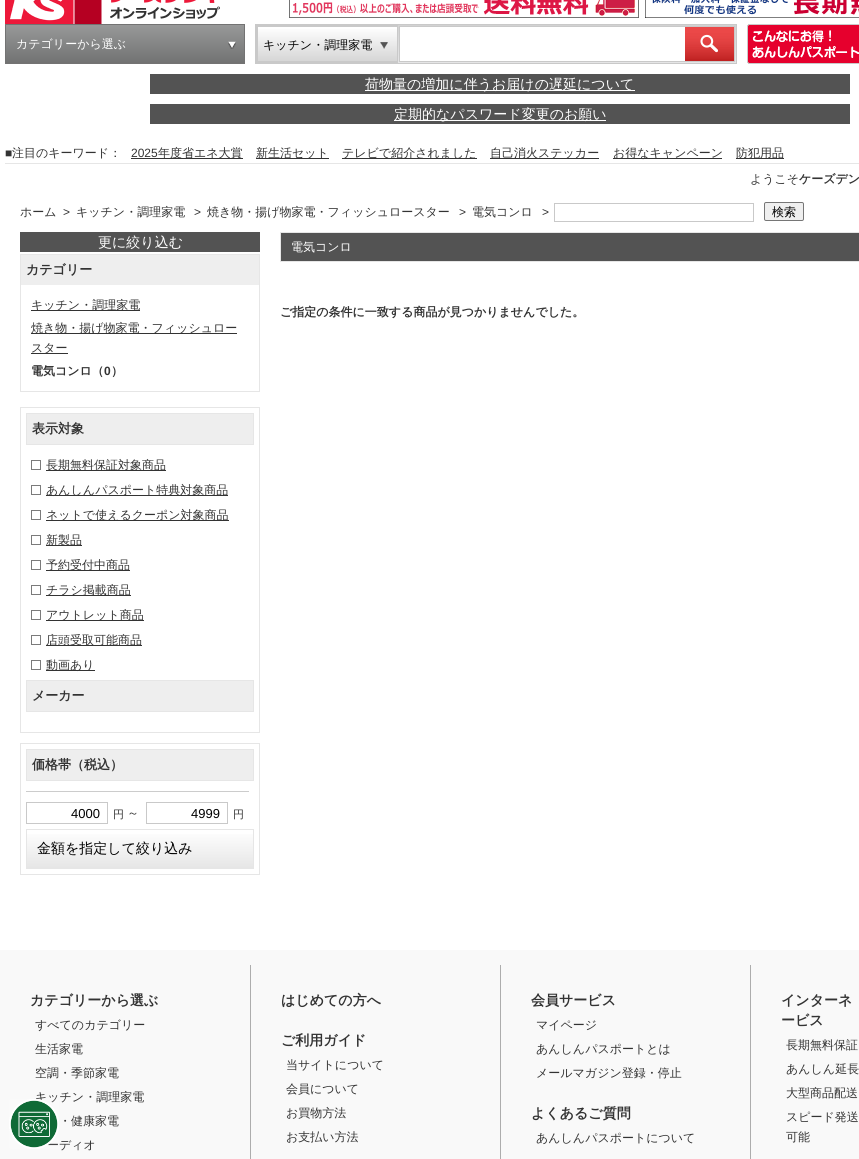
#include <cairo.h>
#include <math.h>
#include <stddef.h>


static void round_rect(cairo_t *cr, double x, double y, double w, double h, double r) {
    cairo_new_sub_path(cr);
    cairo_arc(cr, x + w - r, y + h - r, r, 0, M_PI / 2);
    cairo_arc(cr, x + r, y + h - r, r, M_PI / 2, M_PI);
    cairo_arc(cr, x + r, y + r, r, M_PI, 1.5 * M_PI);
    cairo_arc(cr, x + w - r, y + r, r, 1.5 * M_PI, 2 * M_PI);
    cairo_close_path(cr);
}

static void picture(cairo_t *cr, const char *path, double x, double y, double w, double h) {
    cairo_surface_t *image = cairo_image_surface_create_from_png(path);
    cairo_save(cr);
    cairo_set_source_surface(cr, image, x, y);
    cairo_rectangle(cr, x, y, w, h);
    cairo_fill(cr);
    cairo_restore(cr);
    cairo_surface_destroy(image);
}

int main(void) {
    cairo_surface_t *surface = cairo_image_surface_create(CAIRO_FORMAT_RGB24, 859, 1159);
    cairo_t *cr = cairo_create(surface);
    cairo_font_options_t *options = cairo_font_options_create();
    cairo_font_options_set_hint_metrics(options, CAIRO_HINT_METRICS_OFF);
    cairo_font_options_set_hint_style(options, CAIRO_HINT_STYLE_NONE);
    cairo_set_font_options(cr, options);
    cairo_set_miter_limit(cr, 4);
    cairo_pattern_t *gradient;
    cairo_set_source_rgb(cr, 1, 1, 1);
    cairo_paint(cr);
    picture(cr, "img1.png", 5, 0, 215, 24);
    picture(cr, "img2.png", 289, 0, 350, 18);
    picture(cr, "img3.png", 645, 0, 214, 18);
    gradient = cairo_pattern_create_linear(125, 25, 125, 63);
    cairo_pattern_add_color_stop_rgba(gradient, 0, 0.596, 0.6, 0.6, 1);
    cairo_pattern_add_color_stop_rgba(gradient, 1, 0.447, 0.447, 0.447, 1);
    cairo_set_source(cr, gradient);
    cairo_pattern_destroy(gradient);
    cairo_rectangle(cr, 6, 25, 238, 38);
    cairo_fill(cr);
    cairo_rectangle(cr, 5.5, 24.5, 239, 39);
    cairo_set_source_rgb(cr, 0.451, 0.451, 0.451);
    cairo_set_line_width(cr, 1);
    cairo_stroke(cr);
    cairo_select_font_face(cr, "WenQuanYi Zen Hei Medium", CAIRO_FONT_SLANT_NORMAL, CAIRO_FONT_WEIGHT_NORMAL);
    cairo_set_font_size(cr, 12);
    cairo_set_source_rgb(cr, 1, 1, 1);
    cairo_move_to(cr, 16, 48);
    cairo_show_text(cr, "カテゴリーから選ぶ");
    picture(cr, "img4.png", 228, 41, 8, 8);
    gradient = cairo_pattern_create_linear(328, 27, 328, 61);
    cairo_pattern_add_color_stop_rgba(gradient, 0, 1, 1, 1, 1);
    cairo_pattern_add_color_stop_rgba(gradient, 1, 0.839, 0.839, 0.839, 1);
    cairo_set_source(cr, gradient);
    cairo_pattern_destroy(gradient);
    cairo_rectangle(cr, 258, 29, 139, 32);
    cairo_fill(cr);
    cairo_set_source_rgb(cr, 0.788, 0.788, 0.788);
    cairo_rectangle(cr, 255, 24, 142, 3);
    cairo_fill(cr);
    cairo_rectangle(cr, 255, 61, 142, 3);
    cairo_fill(cr);
    cairo_rectangle(cr, 255, 24, 3, 40);
    cairo_fill(cr);
    cairo_set_source_rgb(cr, 0, 0, 0);
    cairo_move_to(cr, 263, 49);
    cairo_show_text(cr, "キッチン・調理家電");
    picture(cr, "img5.png", 380, 42, 8, 7);
    gradient = cairo_pattern_create_linear(567, 25, 567, 63);
    cairo_pattern_add_color_stop_rgba(gradient, 0, 0.824, 0.824, 0.824, 1);
    cairo_pattern_add_color_stop_rgba(gradient, 1, 0.898, 0.898, 0.902, 1);
    cairo_set_source(cr, gradient);
    cairo_pattern_destroy(gradient);
    cairo_rectangle(cr, 398, 25, 338, 38);
    cairo_fill(cr);
    cairo_rectangle(cr, 397.5, 24.5, 339, 39);
    cairo_set_source_rgb(cr, 0.788, 0.788, 0.788);
    cairo_stroke(cr);
    cairo_set_source_rgb(cr, 1, 1, 1);
    cairo_rectangle(cr, 400, 27, 285, 34);
    cairo_fill(cr);
    cairo_rectangle(cr, 399.5, 26.5, 335, 35);
    cairo_set_source_rgb(cr, 0.788, 0.788, 0.788);
    cairo_stroke(cr);
    picture(cr, "img6.png", 685, 27, 49, 34);
    picture(cr, "img7.png", 747, 24, 112, 40);
    cairo_set_source_rgb(cr, 0.325, 0.325, 0.325);
    cairo_rectangle(cr, 150, 74, 700, 20);
    cairo_fill(cr);
    cairo_set_source_rgb(cr, 1, 1, 1);
    cairo_rectangle(cr, 365, 90, 270, 1);
    cairo_fill(cr);
    cairo_set_font_size(cr, 14);
    cairo_move_to(cr, 365, 89);
    cairo_show_text(cr, "荷物量の増加に伴うお届けの遅延について");
    cairo_set_source_rgb(cr, 0.325, 0.325, 0.325);
    cairo_rectangle(cr, 150, 104, 700, 20);
    cairo_fill(cr);
    cairo_set_source_rgb(cr, 1, 1, 1);
    cairo_rectangle(cr, 394, 120, 212, 1);
    cairo_fill(cr);
    cairo_move_to(cr, 394, 119);
    cairo_show_text(cr, "定期的なパスワード変更のお願い");
    cairo_set_source_rgb(cr, 0.902, 0.902, 0.902);
    cairo_rectangle(cr, 5, 163, 854, 1);
    cairo_fill(cr);
    cairo_select_font_face(cr, "Liberation Sans", CAIRO_FONT_SLANT_NORMAL, CAIRO_FONT_WEIGHT_NORMAL);
    cairo_set_font_size(cr, 12);
    cairo_set_source_rgb(cr, 0.2, 0.2, 0.2);
    cairo_move_to(cr, 5, 157);
    cairo_show_text(cr, "■");
    cairo_select_font_face(cr, "WenQuanYi Zen Hei Medium", CAIRO_FONT_SLANT_NORMAL, CAIRO_FONT_WEIGHT_NORMAL);
    cairo_move_to(cr, 12, 157);
    cairo_show_text(cr, "注目のキーワード：");
    cairo_select_font_face(cr, "Liberation Sans", CAIRO_FONT_SLANT_NORMAL, CAIRO_FONT_WEIGHT_NORMAL);
    cairo_move_to(cr, 131, 157);
    cairo_show_text(cr, "2025");
    cairo_rectangle(cr, 131, 158, 112, 1);
    cairo_fill(cr);
    cairo_select_font_face(cr, "WenQuanYi Zen Hei Medium", CAIRO_FONT_SLANT_NORMAL, CAIRO_FONT_WEIGHT_NORMAL);
    cairo_move_to(cr, 158, 157);
    cairo_show_text(cr, "年度省エネ大賞");
    cairo_rectangle(cr, 256, 158, 73, 1);
    cairo_fill(cr);
    cairo_move_to(cr, 256, 157);
    cairo_show_text(cr, "新生活セット");
    cairo_rectangle(cr, 342, 158, 135, 1);
    cairo_fill(cr);
    cairo_move_to(cr, 342, 157);
    cairo_show_text(cr, "テレビで紹介されました");
    cairo_rectangle(cr, 490, 158, 109, 1);
    cairo_fill(cr);
    cairo_move_to(cr, 490, 157);
    cairo_show_text(cr, "自己消火ステッカー");
    cairo_rectangle(cr, 613, 158, 109, 1);
    cairo_fill(cr);
    cairo_move_to(cr, 613, 157);
    cairo_show_text(cr, "お得なキャンペーン");
    cairo_rectangle(cr, 736, 158, 48, 1);
    cairo_fill(cr);
    cairo_move_to(cr, 736, 157);
    cairo_show_text(cr, "防犯用品");
    cairo_move_to(cr, 750, 183);
    cairo_show_text(cr, "ようこそ");
    cairo_select_font_face(cr, "WenQuanYi Zen Hei", CAIRO_FONT_SLANT_NORMAL, CAIRO_FONT_WEIGHT_BOLD);
    cairo_move_to(cr, 799, 183);
    cairo_show_text(cr, "ケーズデン");
    cairo_select_font_face(cr, "WenQuanYi Zen Hei Medium", CAIRO_FONT_SLANT_NORMAL, CAIRO_FONT_WEIGHT_NORMAL);
    cairo_move_to(cr, 20, 216);
    cairo_show_text(cr, "ホーム");
    cairo_select_font_face(cr, "Liberation Sans", CAIRO_FONT_SLANT_NORMAL, CAIRO_FONT_WEIGHT_NORMAL);
    cairo_move_to(cr, 63, 216);
    cairo_show_text(cr, ">");
    cairo_select_font_face(cr, "WenQuanYi Zen Hei Medium", CAIRO_FONT_SLANT_NORMAL, CAIRO_FONT_WEIGHT_NORMAL);
    cairo_move_to(cr, 76, 216);
    cairo_show_text(cr, "キッチン・調理家電");
    cairo_select_font_face(cr, "Liberation Sans", CAIRO_FONT_SLANT_NORMAL, CAIRO_FONT_WEIGHT_NORMAL);
    cairo_move_to(cr, 194, 216);
    cairo_show_text(cr, ">");
    cairo_select_font_face(cr, "WenQuanYi Zen Hei Medium", CAIRO_FONT_SLANT_NORMAL, CAIRO_FONT_WEIGHT_NORMAL);
    cairo_move_to(cr, 207, 216);
    cairo_show_text(cr, "焼き物・揚げ物家電・フィッシュロースター");
    cairo_select_font_face(cr, "Liberation Sans", CAIRO_FONT_SLANT_NORMAL, CAIRO_FONT_WEIGHT_NORMAL);
    cairo_move_to(cr, 459, 216);
    cairo_show_text(cr, ">");
    cairo_select_font_face(cr, "WenQuanYi Zen Hei Medium", CAIRO_FONT_SLANT_NORMAL, CAIRO_FONT_WEIGHT_NORMAL);
    cairo_move_to(cr, 472, 216);
    cairo_show_text(cr, "電気コンロ");
    cairo_select_font_face(cr, "Liberation Sans", CAIRO_FONT_SLANT_NORMAL, CAIRO_FONT_WEIGHT_NORMAL);
    cairo_move_to(cr, 542, 216);
    cairo_show_text(cr, ">");
    cairo_rectangle(cr, 554.5, 203.5, 199, 18);
    cairo_set_source_rgb(cr, 0.788, 0.788, 0.788);
    cairo_stroke(cr);
    cairo_set_source_rgb(cr, 0.937, 0.937, 0.937);
    round_rect(cr, 764.5, 202.5, 39, 18, 1.5);
    cairo_fill_preserve(cr);
    cairo_set_source_rgb(cr, 0.463, 0.463, 0.463);
    cairo_stroke(cr);
    cairo_select_font_face(cr, "WenQuanYi Zen Hei Medium", CAIRO_FONT_SLANT_NORMAL, CAIRO_FONT_WEIGHT_NORMAL);
    cairo_set_source_rgb(cr, 0, 0, 0);
    cairo_move_to(cr, 772, 216);
    cairo_show_text(cr, "検索");
    cairo_set_source_rgb(cr, 0.325, 0.325, 0.325);
    cairo_rectangle(cr, 20, 232, 240, 20);
    cairo_fill(cr);
    cairo_set_font_size(cr, 14);
    cairo_set_source_rgb(cr, 1, 1, 1);
    cairo_move_to(cr, 98, 247);
    cairo_show_text(cr, "更に絞り込む");
    cairo_rectangle(cr, 20.5, 254.5, 239, 137);
    cairo_set_source_rgb(cr, 0.902, 0.902, 0.902);
    cairo_stroke(cr);
    cairo_set_source_rgb(cr, 0.933, 0.933, 0.933);
    cairo_rectangle(cr, 21, 255, 238, 30);
    cairo_fill(cr);
    cairo_select_font_face(cr, "WenQuanYi Zen Hei", CAIRO_FONT_SLANT_NORMAL, CAIRO_FONT_WEIGHT_BOLD);
    cairo_set_font_size(cr, 13);
    cairo_set_source_rgb(cr, 0.2, 0.2, 0.2);
    cairo_move_to(cr, 26, 274);
    cairo_show_text(cr, "カテゴリー");
    cairo_rectangle(cr, 31, 310, 109, 1);
    cairo_fill(cr);
    cairo_select_font_face(cr, "WenQuanYi Zen Hei Medium", CAIRO_FONT_SLANT_NORMAL, CAIRO_FONT_WEIGHT_NORMAL);
    cairo_set_font_size(cr, 12);
    cairo_move_to(cr, 31, 309);
    cairo_show_text(cr, "キッチン・調理家電");
    cairo_rectangle(cr, 31, 333, 206, 1);
    cairo_fill(cr);
    cairo_move_to(cr, 31, 332);
    cairo_show_text(cr, "焼き物・揚げ物家電・フィッシュロー");
    cairo_rectangle(cr, 31, 353, 37, 1);
    cairo_fill(cr);
    cairo_move_to(cr, 31, 352);
    cairo_show_text(cr, "スター");
    cairo_select_font_face(cr, "WenQuanYi Zen Hei", CAIRO_FONT_SLANT_NORMAL, CAIRO_FONT_WEIGHT_BOLD);
    cairo_move_to(cr, 31, 375);
    cairo_show_text(cr, "電気コンロ（");
    cairo_select_font_face(cr, "Liberation Sans", CAIRO_FONT_SLANT_NORMAL, CAIRO_FONT_WEIGHT_BOLD);
    cairo_move_to(cr, 104, 375);
    cairo_show_text(cr, "0");
    cairo_select_font_face(cr, "WenQuanYi Zen Hei", CAIRO_FONT_SLANT_NORMAL, CAIRO_FONT_WEIGHT_BOLD);
    cairo_move_to(cr, 111, 375);
    cairo_show_text(cr, "）");
    cairo_rectangle(cr, 20.5, 407.5, 239, 325);
    cairo_set_source_rgb(cr, 0.902, 0.902, 0.902);
    cairo_stroke(cr);
    cairo_set_source_rgb(cr, 0.933, 0.933, 0.933);
    cairo_rectangle(cr, 26.5, 413.5, 227, 31);
    cairo_fill_preserve(cr);
    cairo_set_source_rgb(cr, 0.902, 0.902, 0.902);
    cairo_stroke(cr);
    cairo_set_font_size(cr, 13);
    cairo_set_source_rgb(cr, 0.2, 0.2, 0.2);
    cairo_move_to(cr, 32, 433);
    cairo_show_text(cr, "表示対象");
    cairo_rectangle(cr, 31.5, 460.5, 9, 9);
    cairo_set_source_rgb(cr, 0.482, 0.482, 0.482);
    cairo_stroke(cr);
    cairo_set_source_rgb(cr, 0.2, 0.2, 0.2);
    cairo_rectangle(cr, 46, 470, 120, 1);
    cairo_fill(cr);
    cairo_select_font_face(cr, "WenQuanYi Zen Hei Medium", CAIRO_FONT_SLANT_NORMAL, CAIRO_FONT_WEIGHT_NORMAL);
    cairo_set_font_size(cr, 12);
    cairo_move_to(cr, 46, 469);
    cairo_show_text(cr, "長期無料保証対象商品");
    cairo_rectangle(cr, 31.5, 485.5, 9, 9);
    cairo_set_source_rgb(cr, 0.482, 0.482, 0.482);
    cairo_stroke(cr);
    cairo_set_source_rgb(cr, 0.2, 0.2, 0.2);
    cairo_rectangle(cr, 46, 495, 182, 1);
    cairo_fill(cr);
    cairo_move_to(cr, 46, 494);
    cairo_show_text(cr, "あんしんパスポート特典対象商品");
    cairo_rectangle(cr, 31.5, 510.5, 9, 9);
    cairo_set_source_rgb(cr, 0.482, 0.482, 0.482);
    cairo_stroke(cr);
    cairo_set_source_rgb(cr, 0.2, 0.2, 0.2);
    cairo_rectangle(cr, 46, 520, 183, 1);
    cairo_fill(cr);
    cairo_move_to(cr, 46, 519);
    cairo_show_text(cr, "ネットで使えるクーポン対象商品");
    cairo_rectangle(cr, 31.5, 535.5, 9, 9);
    cairo_set_source_rgb(cr, 0.482, 0.482, 0.482);
    cairo_stroke(cr);
    cairo_set_source_rgb(cr, 0.2, 0.2, 0.2);
    cairo_rectangle(cr, 46, 545, 36, 1);
    cairo_fill(cr);
    cairo_move_to(cr, 46, 544);
    cairo_show_text(cr, "新製品");
    cairo_rectangle(cr, 31.5, 560.5, 9, 9);
    cairo_set_source_rgb(cr, 0.482, 0.482, 0.482);
    cairo_stroke(cr);
    cairo_set_source_rgb(cr, 0.2, 0.2, 0.2);
    cairo_rectangle(cr, 46, 570, 84, 1);
    cairo_fill(cr);
    cairo_move_to(cr, 46, 569);
    cairo_show_text(cr, "予約受付中商品");
    cairo_rectangle(cr, 31.5, 585.5, 9, 9);
    cairo_set_source_rgb(cr, 0.482, 0.482, 0.482);
    cairo_stroke(cr);
    cairo_set_source_rgb(cr, 0.2, 0.2, 0.2);
    cairo_rectangle(cr, 46, 595, 85, 1);
    cairo_fill(cr);
    cairo_move_to(cr, 46, 594);
    cairo_show_text(cr, "チラシ掲載商品");
    cairo_rectangle(cr, 31.5, 610.5, 9, 9);
    cairo_set_source_rgb(cr, 0.482, 0.482, 0.482);
    cairo_stroke(cr);
    cairo_set_source_rgb(cr, 0.2, 0.2, 0.2);
    cairo_rectangle(cr, 46, 620, 98, 1);
    cairo_fill(cr);
    cairo_move_to(cr, 46, 619);
    cairo_show_text(cr, "アウトレット商品");
    cairo_rectangle(cr, 31.5, 635.5, 9, 9);
    cairo_set_source_rgb(cr, 0.482, 0.482, 0.482);
    cairo_stroke(cr);
    cairo_set_source_rgb(cr, 0.2, 0.2, 0.2);
    cairo_rectangle(cr, 46, 645, 96, 1);
    cairo_fill(cr);
    cairo_move_to(cr, 46, 644);
    cairo_show_text(cr, "店頭受取可能商品");
    cairo_rectangle(cr, 31.5, 660.5, 9, 9);
    cairo_set_source_rgb(cr, 0.482, 0.482, 0.482);
    cairo_stroke(cr);
    cairo_set_source_rgb(cr, 0.2, 0.2, 0.2);
    cairo_rectangle(cr, 46, 670, 49, 1);
    cairo_fill(cr);
    cairo_move_to(cr, 46, 669);
    cairo_show_text(cr, "動画あり");
    cairo_set_source_rgb(cr, 0.933, 0.933, 0.933);
    cairo_rectangle(cr, 26.5, 680.5, 227, 31);
    cairo_fill_preserve(cr);
    cairo_set_source_rgb(cr, 0.902, 0.902, 0.902);
    cairo_stroke(cr);
    cairo_select_font_face(cr, "WenQuanYi Zen Hei", CAIRO_FONT_SLANT_NORMAL, CAIRO_FONT_WEIGHT_BOLD);
    cairo_set_font_size(cr, 13);
    cairo_set_source_rgb(cr, 0.2, 0.2, 0.2);
    cairo_move_to(cr, 32, 700);
    cairo_show_text(cr, "メーカー");
    cairo_rectangle(cr, 20.5, 743.5, 239, 131);
    cairo_set_source_rgb(cr, 0.902, 0.902, 0.902);
    cairo_stroke(cr);
    cairo_set_source_rgb(cr, 0.933, 0.933, 0.933);
    cairo_rectangle(cr, 26.5, 749.5, 227, 31);
    cairo_fill_preserve(cr);
    cairo_set_source_rgb(cr, 0.902, 0.902, 0.902);
    cairo_stroke(cr);
    cairo_set_source_rgb(cr, 0.2, 0.2, 0.2);
    cairo_move_to(cr, 32, 769);
    cairo_show_text(cr, "価格帯（税込）");
    cairo_set_source_rgb(cr, 0.8, 0.8, 0.8);
    cairo_rectangle(cr, 26, 791, 223, 1);
    cairo_fill(cr);
    cairo_rectangle(cr, 26.5, 802.5, 81, 21);
    cairo_set_source_rgb(cr, 0.788, 0.788, 0.788);
    cairo_stroke(cr);
    cairo_select_font_face(cr, "Liberation Sans", CAIRO_FONT_SLANT_NORMAL, CAIRO_FONT_WEIGHT_NORMAL);
    cairo_set_source_rgb(cr, 0, 0, 0);
    cairo_move_to(cr, 71, 818);
    cairo_show_text(cr, "4000");
    cairo_select_font_face(cr, "WenQuanYi Zen Hei Medium", CAIRO_FONT_SLANT_NORMAL, CAIRO_FONT_WEIGHT_NORMAL);
    cairo_set_font_size(cr, 11);
    cairo_set_source_rgb(cr, 0.2, 0.2, 0.2);
    cairo_move_to(cr, 113, 818);
    cairo_show_text(cr, "円");
    cairo_set_font_size(cr, 12);
    cairo_move_to(cr, 127, 817);
    cairo_show_text(cr, "～");
    cairo_rectangle(cr, 146.5, 802.5, 81, 21);
    cairo_set_source_rgb(cr, 0.788, 0.788, 0.788);
    cairo_stroke(cr);
    cairo_select_font_face(cr, "Liberation Sans", CAIRO_FONT_SLANT_NORMAL, CAIRO_FONT_WEIGHT_NORMAL);
    cairo_set_font_size(cr, 13);
    cairo_set_source_rgb(cr, 0, 0, 0);
    cairo_move_to(cr, 191, 818);
    cairo_show_text(cr, "4999");
    cairo_select_font_face(cr, "WenQuanYi Zen Hei Medium", CAIRO_FONT_SLANT_NORMAL, CAIRO_FONT_WEIGHT_NORMAL);
    cairo_set_font_size(cr, 11);
    cairo_set_source_rgb(cr, 0.2, 0.2, 0.2);
    cairo_move_to(cr, 233, 818);
    cairo_show_text(cr, "円");
    gradient = cairo_pattern_create_linear(140, 830, 140, 868);
    cairo_pattern_add_color_stop_rgba(gradient, 0, 1, 1, 1, 1);
    cairo_pattern_add_color_stop_rgba(gradient, 1, 0.902, 0.902, 0.902, 1);
    cairo_set_source(cr, gradient);
    cairo_pattern_destroy(gradient);
    cairo_rectangle(cr, 27, 834, 226, 34);
    cairo_fill(cr);
    cairo_rectangle(cr, 26.5, 829.5, 227, 39);
    cairo_set_source_rgb(cr, 0.902, 0.902, 0.902);
    cairo_stroke(cr);
    cairo_set_font_size(cr, 14);
    cairo_set_source_rgb(cr, 0, 0, 0);
    cairo_move_to(cr, 37, 853);
    cairo_show_text(cr, "金額を指定して絞り込み");
    cairo_rectangle(cr, 280.5, 232.5, 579, 29);
    cairo_set_source_rgb(cr, 0.902, 0.902, 0.902);
    cairo_stroke(cr);
    cairo_set_source_rgb(cr, 0.325, 0.325, 0.325);
    cairo_rectangle(cr, 281, 233, 578, 28);
    cairo_fill(cr);
    cairo_set_font_size(cr, 12);
    cairo_set_source_rgb(cr, 1, 1, 1);
    cairo_move_to(cr, 291, 251);
    cairo_show_text(cr, "電気コンロ");
    cairo_select_font_face(cr, "WenQuanYi Zen Hei", CAIRO_FONT_SLANT_NORMAL, CAIRO_FONT_WEIGHT_BOLD);
    cairo_set_source_rgb(cr, 0.2, 0.2, 0.2);
    cairo_move_to(cr, 280, 316);
    cairo_show_text(cr, "ご指定の条件に一致する商品が見つかりませんでした。");
    cairo_set_source_rgb(cr, 0.973, 0.973, 0.973);
    cairo_rectangle(cr, 0, 950, 859, 209);
    cairo_fill(cr);
    cairo_set_font_size(cr, 14);
    cairo_set_source_rgb(cr, 0.2, 0.2, 0.2);
    cairo_move_to(cr, 30, 1005);
    cairo_show_text(cr, "カテゴリーから選ぶ");
    cairo_select_font_face(cr, "WenQuanYi Zen Hei Medium", CAIRO_FONT_SLANT_NORMAL, CAIRO_FONT_WEIGHT_NORMAL);
    cairo_set_font_size(cr, 12);
    cairo_move_to(cr, 35, 1029);
    cairo_show_text(cr, "すべてのカテゴリー");
    cairo_move_to(cr, 35, 1053);
    cairo_show_text(cr, "生活家電");
    cairo_move_to(cr, 35, 1077);
    cairo_show_text(cr, "空調・季節家電");
    cairo_move_to(cr, 35, 1101);
    cairo_show_text(cr, "キッチン・調理家電");
    cairo_move_to(cr, 59, 1125);
    cairo_show_text(cr, "・健康家電");
    cairo_move_to(cr, 47, 1149);
    cairo_show_text(cr, "ーディオ");
    cairo_set_source_rgb(cr, 0.678, 0.678, 0.678);
    cairo_rectangle(cr, 250, 965, 1, 194);
    cairo_fill(cr);
    cairo_select_font_face(cr, "WenQuanYi Zen Hei", CAIRO_FONT_SLANT_NORMAL, CAIRO_FONT_WEIGHT_BOLD);
    cairo_set_font_size(cr, 14);
    cairo_set_source_rgb(cr, 0.2, 0.2, 0.2);
    cairo_move_to(cr, 281, 1005);
    cairo_show_text(cr, "はじめての方へ");
    cairo_move_to(cr, 281, 1045);
    cairo_show_text(cr, "ご利用ガイド");
    cairo_select_font_face(cr, "WenQuanYi Zen Hei Medium", CAIRO_FONT_SLANT_NORMAL, CAIRO_FONT_WEIGHT_NORMAL);
    cairo_set_font_size(cr, 12);
    cairo_move_to(cr, 286, 1069);
    cairo_show_text(cr, "当サイトについて");
    cairo_move_to(cr, 286, 1093);
    cairo_show_text(cr, "会員について");
    cairo_move_to(cr, 286, 1117);
    cairo_show_text(cr, "お買物方法");
    cairo_move_to(cr, 286, 1141);
    cairo_show_text(cr, "お支払い方法");
    cairo_set_source_rgb(cr, 0.678, 0.678, 0.678);
    cairo_rectangle(cr, 500, 965, 1, 194);
    cairo_fill(cr);
    cairo_select_font_face(cr, "WenQuanYi Zen Hei", CAIRO_FONT_SLANT_NORMAL, CAIRO_FONT_WEIGHT_BOLD);
    cairo_set_font_size(cr, 14);
    cairo_set_source_rgb(cr, 0.2, 0.2, 0.2);
    cairo_move_to(cr, 531, 1005);
    cairo_show_text(cr, "会員サービス");
    cairo_select_font_face(cr, "WenQuanYi Zen Hei Medium", CAIRO_FONT_SLANT_NORMAL, CAIRO_FONT_WEIGHT_NORMAL);
    cairo_set_font_size(cr, 12);
    cairo_move_to(cr, 536, 1029);
    cairo_show_text(cr, "マイページ");
    cairo_move_to(cr, 536, 1053);
    cairo_show_text(cr, "あんしんパスポートとは");
    cairo_move_to(cr, 536, 1077);
    cairo_show_text(cr, "メールマガジン登録・停止");
    cairo_select_font_face(cr, "WenQuanYi Zen Hei", CAIRO_FONT_SLANT_NORMAL, CAIRO_FONT_WEIGHT_BOLD);
    cairo_set_font_size(cr, 14);
    cairo_move_to(cr, 531, 1118);
    cairo_show_text(cr, "よくあるご質問");
    cairo_select_font_face(cr, "WenQuanYi Zen Hei Medium", CAIRO_FONT_SLANT_NORMAL, CAIRO_FONT_WEIGHT_NORMAL);
    cairo_set_font_size(cr, 12);
    cairo_move_to(cr, 536, 1142);
    cairo_show_text(cr, "あんしんパスポートについて");
    cairo_set_source_rgb(cr, 0.678, 0.678, 0.678);
    cairo_rectangle(cr, 750, 965, 1, 194);
    cairo_fill(cr);
    cairo_select_font_face(cr, "WenQuanYi Zen Hei", CAIRO_FONT_SLANT_NORMAL, CAIRO_FONT_WEIGHT_BOLD);
    cairo_set_font_size(cr, 14);
    cairo_set_source_rgb(cr, 0.2, 0.2, 0.2);
    cairo_move_to(cr, 781, 1005);
    cairo_show_text(cr, "インターネ");
    cairo_move_to(cr, 781, 1025);
    cairo_show_text(cr, "ービス");
    cairo_select_font_face(cr, "WenQuanYi Zen Hei Medium", CAIRO_FONT_SLANT_NORMAL, CAIRO_FONT_WEIGHT_NORMAL);
    cairo_set_font_size(cr, 12);
    cairo_move_to(cr, 786, 1049);
    cairo_show_text(cr, "長期無料保証");
    cairo_move_to(cr, 786, 1073);
    cairo_show_text(cr, "あんしん延長");
    cairo_move_to(cr, 786, 1097);
    cairo_show_text(cr, "大型商品配送");
    cairo_move_to(cr, 786, 1121);
    cairo_show_text(cr, "スピード発送");
    cairo_move_to(cr, 786, 1141);
    cairo_show_text(cr, "可能");
    cairo_set_source_rgba(cr, 1, 1, 1, 0.1);
    round_rect(cr, 9, 1099, 50, 50, 2);
    cairo_fill(cr);
    picture(cr, "img8.png", 9, 1099, 50, 50);
    cairo_surface_write_to_png(surface, "page.png");
    cairo_font_options_destroy(options);
    cairo_destroy(cr);
    cairo_surface_destroy(surface);
    return 0;
}
